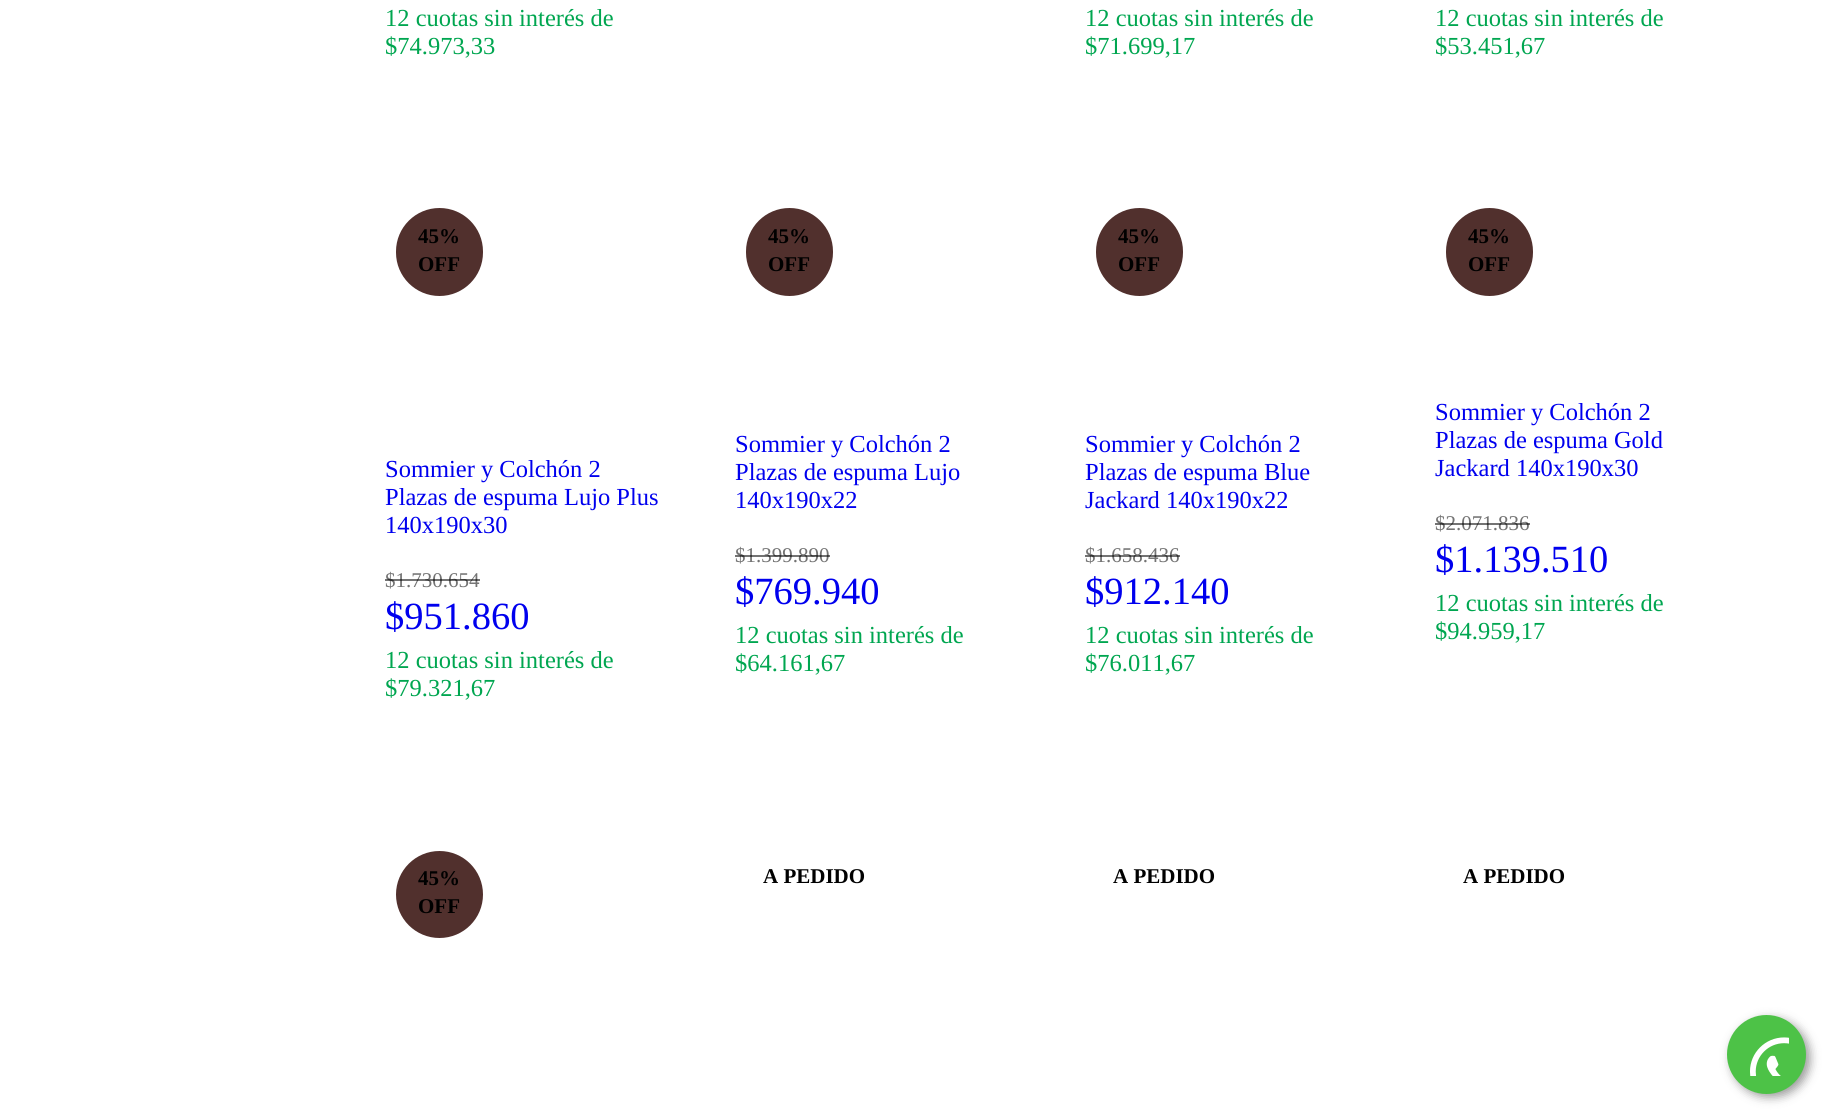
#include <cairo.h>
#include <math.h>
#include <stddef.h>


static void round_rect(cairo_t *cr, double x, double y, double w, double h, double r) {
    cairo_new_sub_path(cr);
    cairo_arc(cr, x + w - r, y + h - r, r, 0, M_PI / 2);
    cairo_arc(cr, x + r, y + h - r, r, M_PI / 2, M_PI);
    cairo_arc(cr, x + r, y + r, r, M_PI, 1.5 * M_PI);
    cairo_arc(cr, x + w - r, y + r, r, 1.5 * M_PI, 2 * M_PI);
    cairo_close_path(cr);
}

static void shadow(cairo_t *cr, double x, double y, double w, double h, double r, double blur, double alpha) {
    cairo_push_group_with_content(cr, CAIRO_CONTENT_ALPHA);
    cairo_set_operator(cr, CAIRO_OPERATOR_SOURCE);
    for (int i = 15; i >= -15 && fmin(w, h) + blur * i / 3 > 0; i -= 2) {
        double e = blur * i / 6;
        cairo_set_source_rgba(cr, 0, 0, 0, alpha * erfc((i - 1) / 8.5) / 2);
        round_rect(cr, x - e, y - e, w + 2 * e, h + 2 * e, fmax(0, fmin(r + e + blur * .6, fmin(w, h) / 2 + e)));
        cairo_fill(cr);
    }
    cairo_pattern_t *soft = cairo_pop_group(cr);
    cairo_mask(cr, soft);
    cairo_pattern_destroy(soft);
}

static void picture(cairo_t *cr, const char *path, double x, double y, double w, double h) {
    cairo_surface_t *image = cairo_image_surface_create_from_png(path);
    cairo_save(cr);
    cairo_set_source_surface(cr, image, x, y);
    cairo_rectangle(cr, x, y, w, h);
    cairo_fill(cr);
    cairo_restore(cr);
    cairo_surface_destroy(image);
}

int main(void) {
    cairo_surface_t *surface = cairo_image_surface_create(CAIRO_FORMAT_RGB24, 1822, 1111);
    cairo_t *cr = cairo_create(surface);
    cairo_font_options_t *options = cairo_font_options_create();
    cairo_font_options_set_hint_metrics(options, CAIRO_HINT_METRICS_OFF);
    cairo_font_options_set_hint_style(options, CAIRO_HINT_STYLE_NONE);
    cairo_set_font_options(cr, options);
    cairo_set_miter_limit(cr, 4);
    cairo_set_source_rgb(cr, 1, 1, 1);
    cairo_paint(cr);
    cairo_select_font_face(cr, "Liberation Serif", CAIRO_FONT_SLANT_NORMAL, CAIRO_FONT_WEIGHT_NORMAL);
    cairo_set_font_size(cr, 24.5);
    cairo_set_source_rgb(cr, 0, 0.651, 0.314);
    cairo_move_to(cr, 385, 26);
    cairo_show_text(cr, "12 cuotas sin interés de");
    cairo_move_to(cr, 385, 54);
    cairo_show_text(cr, "$74.973,33");
    cairo_move_to(cr, 1085, 26);
    cairo_show_text(cr, "12 cuotas sin interés de");
    cairo_move_to(cr, 1085, 54);
    cairo_show_text(cr, "$71.699,17");
    cairo_move_to(cr, 1435, 26);
    cairo_show_text(cr, "12 cuotas sin interés de");
    cairo_move_to(cr, 1435, 54);
    cairo_show_text(cr, "$53.451,67");
    cairo_set_source_rgb(cr, 0.318, 0.188, 0.176);
    round_rect(cr, 396, 208, 87, 88, 43.5);
    cairo_fill(cr);
    cairo_select_font_face(cr, "Liberation Serif", CAIRO_FONT_SLANT_NORMAL, CAIRO_FONT_WEIGHT_BOLD);
    cairo_set_font_size(cr, 21);
    cairo_set_source_rgb(cr, 0, 0, 0);
    cairo_move_to(cr, 418, 243);
    cairo_show_text(cr, "45%");
    cairo_move_to(cr, 418, 271);
    cairo_show_text(cr, "OFF");
    cairo_select_font_face(cr, "Liberation Serif", CAIRO_FONT_SLANT_NORMAL, CAIRO_FONT_WEIGHT_NORMAL);
    cairo_set_font_size(cr, 24.5);
    cairo_set_source_rgb(cr, 0, 0, 0.933);
    cairo_move_to(cr, 385, 477);
    cairo_show_text(cr, "Sommier y Colchón 2");
    cairo_move_to(cr, 385, 505);
    cairo_show_text(cr, "Plazas de espuma Lujo Plus");
    cairo_move_to(cr, 385, 533);
    cairo_show_text(cr, "140x190x30");
    cairo_set_font_size(cr, 21);
    cairo_set_source_rgb(cr, 0.451, 0.451, 0.451);
    cairo_move_to(cr, 385, 587);
    cairo_show_text(cr, "$1.730.654");
    cairo_set_source_rgba(cr, 0, 0, 0, 0.55);
    cairo_rectangle(cr, 385, 579, 95, 2);
    cairo_fill(cr);
    cairo_set_font_size(cr, 38.5);
    cairo_set_source_rgb(cr, 0, 0, 0.933);
    cairo_move_to(cr, 385, 629);
    cairo_show_text(cr, "$951.860");
    cairo_set_font_size(cr, 24.5);
    cairo_set_source_rgb(cr, 0, 0.651, 0.314);
    cairo_move_to(cr, 385, 668);
    cairo_show_text(cr, "12 cuotas sin interés de");
    cairo_move_to(cr, 385, 696);
    cairo_show_text(cr, "$79.321,67");
    cairo_set_source_rgb(cr, 0.318, 0.188, 0.176);
    round_rect(cr, 746, 208, 87, 88, 43.5);
    cairo_fill(cr);
    cairo_select_font_face(cr, "Liberation Serif", CAIRO_FONT_SLANT_NORMAL, CAIRO_FONT_WEIGHT_BOLD);
    cairo_set_font_size(cr, 21);
    cairo_set_source_rgb(cr, 0, 0, 0);
    cairo_move_to(cr, 768, 243);
    cairo_show_text(cr, "45%");
    cairo_move_to(cr, 768, 271);
    cairo_show_text(cr, "OFF");
    cairo_select_font_face(cr, "Liberation Serif", CAIRO_FONT_SLANT_NORMAL, CAIRO_FONT_WEIGHT_NORMAL);
    cairo_set_font_size(cr, 24.5);
    cairo_set_source_rgb(cr, 0, 0, 0.933);
    cairo_move_to(cr, 735, 452);
    cairo_show_text(cr, "Sommier y Colchón 2");
    cairo_move_to(cr, 735, 480);
    cairo_show_text(cr, "Plazas de espuma Lujo");
    cairo_move_to(cr, 735, 508);
    cairo_show_text(cr, "140x190x22");
    cairo_set_font_size(cr, 21);
    cairo_set_source_rgb(cr, 0.451, 0.451, 0.451);
    cairo_move_to(cr, 735, 562);
    cairo_show_text(cr, "$1.399.890");
    cairo_set_source_rgba(cr, 0, 0, 0, 0.55);
    cairo_rectangle(cr, 735, 555, 95, 2);
    cairo_fill(cr);
    cairo_set_font_size(cr, 38.5);
    cairo_set_source_rgb(cr, 0, 0, 0.933);
    cairo_move_to(cr, 735, 604);
    cairo_show_text(cr, "$769.940");
    cairo_set_font_size(cr, 24.5);
    cairo_set_source_rgb(cr, 0, 0.651, 0.314);
    cairo_move_to(cr, 735, 643);
    cairo_show_text(cr, "12 cuotas sin interés de");
    cairo_move_to(cr, 735, 671);
    cairo_show_text(cr, "$64.161,67");
    cairo_set_source_rgb(cr, 0.318, 0.188, 0.176);
    round_rect(cr, 1096, 208, 87, 88, 43.5);
    cairo_fill(cr);
    cairo_select_font_face(cr, "Liberation Serif", CAIRO_FONT_SLANT_NORMAL, CAIRO_FONT_WEIGHT_BOLD);
    cairo_set_font_size(cr, 21);
    cairo_set_source_rgb(cr, 0, 0, 0);
    cairo_move_to(cr, 1118, 243);
    cairo_show_text(cr, "45%");
    cairo_move_to(cr, 1118, 271);
    cairo_show_text(cr, "OFF");
    cairo_select_font_face(cr, "Liberation Serif", CAIRO_FONT_SLANT_NORMAL, CAIRO_FONT_WEIGHT_NORMAL);
    cairo_set_font_size(cr, 24.5);
    cairo_set_source_rgb(cr, 0, 0, 0.933);
    cairo_move_to(cr, 1085, 452);
    cairo_show_text(cr, "Sommier y Colchón 2");
    cairo_move_to(cr, 1085, 480);
    cairo_show_text(cr, "Plazas de espuma Blue");
    cairo_move_to(cr, 1085, 508);
    cairo_show_text(cr, "Jackard 140x190x22");
    cairo_set_font_size(cr, 21);
    cairo_set_source_rgb(cr, 0.451, 0.451, 0.451);
    cairo_move_to(cr, 1085, 562);
    cairo_show_text(cr, "$1.658.436");
    cairo_set_source_rgba(cr, 0, 0, 0, 0.55);
    cairo_rectangle(cr, 1085, 555, 95, 2);
    cairo_fill(cr);
    cairo_set_font_size(cr, 38.5);
    cairo_set_source_rgb(cr, 0, 0, 0.933);
    cairo_move_to(cr, 1085, 604);
    cairo_show_text(cr, "$912.140");
    cairo_set_font_size(cr, 24.5);
    cairo_set_source_rgb(cr, 0, 0.651, 0.314);
    cairo_move_to(cr, 1085, 643);
    cairo_show_text(cr, "12 cuotas sin interés de");
    cairo_move_to(cr, 1085, 671);
    cairo_show_text(cr, "$76.011,67");
    cairo_set_source_rgb(cr, 0.318, 0.188, 0.176);
    round_rect(cr, 1446, 208, 87, 88, 43.5);
    cairo_fill(cr);
    cairo_select_font_face(cr, "Liberation Serif", CAIRO_FONT_SLANT_NORMAL, CAIRO_FONT_WEIGHT_BOLD);
    cairo_set_font_size(cr, 21);
    cairo_set_source_rgb(cr, 0, 0, 0);
    cairo_move_to(cr, 1468, 243);
    cairo_show_text(cr, "45%");
    cairo_move_to(cr, 1468, 271);
    cairo_show_text(cr, "OFF");
    cairo_select_font_face(cr, "Liberation Serif", CAIRO_FONT_SLANT_NORMAL, CAIRO_FONT_WEIGHT_NORMAL);
    cairo_set_font_size(cr, 24.5);
    cairo_set_source_rgb(cr, 0, 0, 0.933);
    cairo_move_to(cr, 1435, 420);
    cairo_show_text(cr, "Sommier y Colchón 2");
    cairo_move_to(cr, 1435, 448);
    cairo_show_text(cr, "Plazas de espuma Gold");
    cairo_move_to(cr, 1435, 476);
    cairo_show_text(cr, "Jackard 140x190x30");
    cairo_set_font_size(cr, 21);
    cairo_set_source_rgb(cr, 0.451, 0.451, 0.451);
    cairo_move_to(cr, 1435, 530);
    cairo_show_text(cr, "$2.071.836");
    cairo_set_source_rgba(cr, 0, 0, 0, 0.55);
    cairo_rectangle(cr, 1435, 523, 95, 2);
    cairo_fill(cr);
    cairo_set_font_size(cr, 38.5);
    cairo_set_source_rgb(cr, 0, 0, 0.933);
    cairo_move_to(cr, 1435, 572);
    cairo_show_text(cr, "$1.139.510");
    cairo_set_font_size(cr, 24.5);
    cairo_set_source_rgb(cr, 0, 0.651, 0.314);
    cairo_move_to(cr, 1435, 611);
    cairo_show_text(cr, "12 cuotas sin interés de");
    cairo_move_to(cr, 1435, 639);
    cairo_show_text(cr, "$94.959,17");
    cairo_set_source_rgb(cr, 0.318, 0.188, 0.176);
    cairo_new_path(cr);
    cairo_arc(cr, 439.5, 894.5, 43.5, 0, 2 * M_PI);
    cairo_fill(cr);
    cairo_select_font_face(cr, "Liberation Serif", CAIRO_FONT_SLANT_NORMAL, CAIRO_FONT_WEIGHT_BOLD);
    cairo_set_font_size(cr, 21);
    cairo_set_source_rgb(cr, 0, 0, 0);
    cairo_move_to(cr, 418, 885);
    cairo_show_text(cr, "45%");
    cairo_move_to(cr, 418, 913);
    cairo_show_text(cr, "OFF");
    cairo_move_to(cr, 763, 883);
    cairo_show_text(cr, "A PEDIDO");
    cairo_move_to(cr, 1113, 883);
    cairo_show_text(cr, "A PEDIDO");
    cairo_move_to(cr, 1463, 883);
    cairo_show_text(cr, "A PEDIDO");
    cairo_set_source_rgb(cr, 0, 0, 0);
    shadow(cr, 1731, 1019, 79, 78, 39, 5, 0.4);
    cairo_set_source_rgb(cr, 0.302, 0.761, 0.278);
    cairo_arc(cr, 1766.5, 1054.5, 39.5, 0, 2 * M_PI);
    cairo_fill(cr);
    picture(cr, "img1.png", 1750, 1037, 39, 39);
    cairo_surface_write_to_png(surface, "page.png");
    cairo_font_options_destroy(options);
    cairo_destroy(cr);
    cairo_surface_destroy(surface);
    return 0;
}
